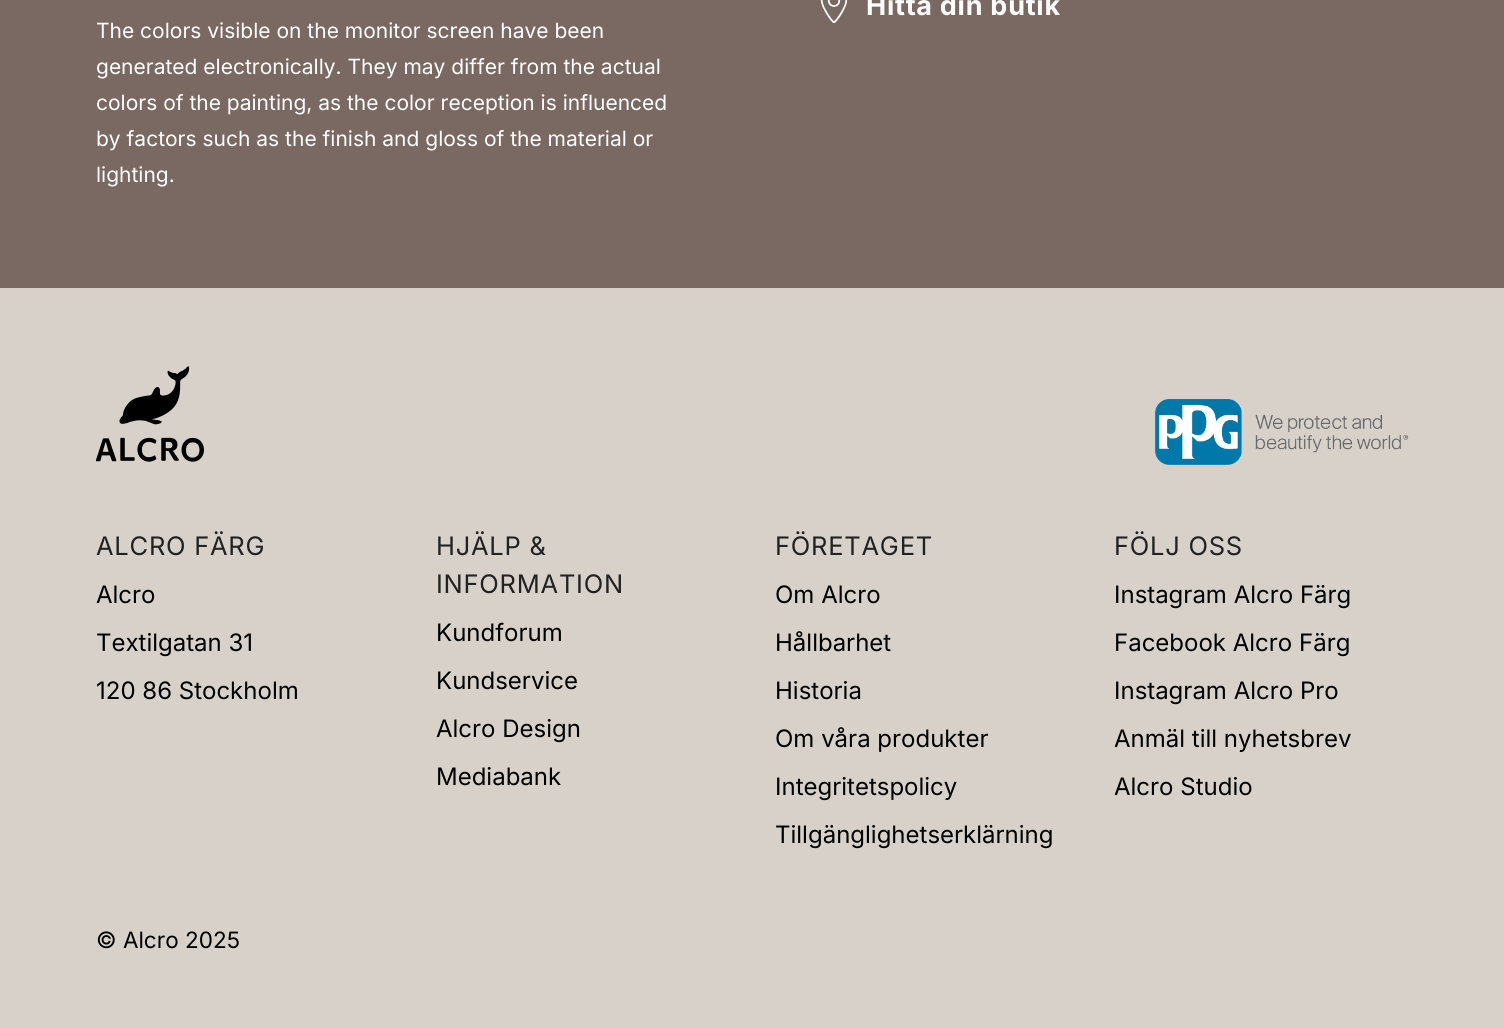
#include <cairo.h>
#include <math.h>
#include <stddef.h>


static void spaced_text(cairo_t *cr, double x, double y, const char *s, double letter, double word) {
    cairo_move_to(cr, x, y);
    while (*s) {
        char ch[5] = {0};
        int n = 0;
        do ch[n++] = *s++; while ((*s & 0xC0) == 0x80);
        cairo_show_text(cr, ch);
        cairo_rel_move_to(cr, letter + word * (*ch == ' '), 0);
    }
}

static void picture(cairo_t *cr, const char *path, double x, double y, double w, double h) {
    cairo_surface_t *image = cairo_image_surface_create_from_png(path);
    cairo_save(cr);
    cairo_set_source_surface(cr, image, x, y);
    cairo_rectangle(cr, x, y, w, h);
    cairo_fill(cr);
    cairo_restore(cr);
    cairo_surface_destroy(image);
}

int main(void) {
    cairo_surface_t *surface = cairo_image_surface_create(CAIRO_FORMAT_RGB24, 1504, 1028);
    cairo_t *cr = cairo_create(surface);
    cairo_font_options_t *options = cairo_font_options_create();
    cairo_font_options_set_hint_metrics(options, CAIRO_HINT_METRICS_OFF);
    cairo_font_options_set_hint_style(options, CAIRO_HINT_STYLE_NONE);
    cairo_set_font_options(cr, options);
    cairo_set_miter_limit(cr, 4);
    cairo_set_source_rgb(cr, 0.478, 0.412, 0.384);
    cairo_paint(cr);
    picture(cr, "img1.png", 820, 0, 28, 24);
    cairo_select_font_face(cr, "Inter", CAIRO_FONT_SLANT_NORMAL, CAIRO_FONT_WEIGHT_BOLD);
    cairo_set_font_size(cr, 27);
    cairo_set_source_rgb(cr, 1, 1, 1);
    spaced_text(cr, 866, 15, "Hitta din butik", 0.75, 0);
    cairo_select_font_face(cr, "Inter", CAIRO_FONT_SLANT_NORMAL, CAIRO_FONT_WEIGHT_NORMAL);
    cairo_set_font_size(cr, 21);
    cairo_move_to(cr, 96, 38);
    cairo_show_text(cr, "The colors visible on the monitor screen have been");
    cairo_move_to(cr, 96, 74);
    cairo_show_text(cr, "generated electronically. They may differ from the actual");
    cairo_move_to(cr, 96, 110);
    cairo_show_text(cr, "colors of the painting, as the color reception is influenced");
    cairo_move_to(cr, 96, 146);
    cairo_show_text(cr, "by factors such as the finish and gloss of the material or");
    cairo_move_to(cr, 96, 182);
    cairo_show_text(cr, "lighting.");
    cairo_set_source_rgb(cr, 0.843, 0.82, 0.792);
    cairo_rectangle(cr, 0, 288, 1504, 740);
    cairo_fill(cr);
    picture(cr, "img2.png", 96, 366, 108, 96);
    picture(cr, "img3.png", 1155, 399, 254, 66);
    cairo_set_font_size(cr, 25.5);
    cairo_set_source_rgb(cr, 0.133, 0.133, 0.133);
    spaced_text(cr, 96, 555, "ALCRO FÄRG", 0.75, 0);
    cairo_set_font_size(cr, 24);
    cairo_set_source_rgb(cr, 0, 0, 0);
    cairo_move_to(cr, 96, 603);
    cairo_show_text(cr, "Alcro");
    cairo_move_to(cr, 96, 651);
    cairo_show_text(cr, "Textilgatan 31");
    cairo_move_to(cr, 96, 699);
    cairo_show_text(cr, "120 86 Stockholm");
    cairo_set_font_size(cr, 25.5);
    cairo_set_source_rgb(cr, 0.133, 0.133, 0.133);
    spaced_text(cr, 436, 555, "HJÄLP &", 0.75, 0);
    spaced_text(cr, 436, 593, "INFORMATION", 0.75, 0);
    cairo_set_font_size(cr, 24);
    cairo_set_source_rgb(cr, 0, 0, 0);
    cairo_move_to(cr, 436, 641);
    cairo_show_text(cr, "Kundforum");
    cairo_move_to(cr, 436, 689);
    cairo_show_text(cr, "Kundservice");
    cairo_move_to(cr, 436, 737);
    cairo_show_text(cr, "Alcro Design");
    cairo_move_to(cr, 436, 785);
    cairo_show_text(cr, "Mediabank");
    cairo_set_font_size(cr, 25.5);
    cairo_set_source_rgb(cr, 0.133, 0.133, 0.133);
    spaced_text(cr, 775, 555, "FÖRETAGET", 0.75, 0);
    cairo_set_font_size(cr, 24);
    cairo_set_source_rgb(cr, 0, 0, 0);
    cairo_move_to(cr, 775, 603);
    cairo_show_text(cr, "Om Alcro");
    cairo_move_to(cr, 775, 651);
    cairo_show_text(cr, "Hållbarhet");
    cairo_move_to(cr, 775, 699);
    cairo_show_text(cr, "Historia");
    cairo_move_to(cr, 775, 747);
    cairo_show_text(cr, "Om våra produkter");
    cairo_move_to(cr, 775, 795);
    cairo_show_text(cr, "Integritetspolicy");
    cairo_move_to(cr, 775, 843);
    cairo_show_text(cr, "Tillgänglighetserklärning");
    cairo_set_font_size(cr, 25.5);
    cairo_set_source_rgb(cr, 0.133, 0.133, 0.133);
    spaced_text(cr, 1114, 555, "FÖLJ OSS", 0.75, 0);
    cairo_set_font_size(cr, 24);
    cairo_set_source_rgb(cr, 0, 0, 0);
    cairo_move_to(cr, 1114, 603);
    cairo_show_text(cr, "Instagram Alcro Färg");
    cairo_move_to(cr, 1114, 651);
    cairo_show_text(cr, "Facebook Alcro Färg");
    cairo_move_to(cr, 1114, 699);
    cairo_show_text(cr, "Instagram Alcro Pro");
    cairo_move_to(cr, 1114, 747);
    cairo_show_text(cr, "Anmäl till nyhetsbrev");
    cairo_move_to(cr, 1114, 795);
    cairo_show_text(cr, "Alcro Studio");
    cairo_set_font_size(cr, 22.5);
    cairo_move_to(cr, 96, 948);
    cairo_show_text(cr, "© Alcro 2025");
    cairo_surface_write_to_png(surface, "page.png");
    cairo_font_options_destroy(options);
    cairo_destroy(cr);
    cairo_surface_destroy(surface);
    return 0;
}
